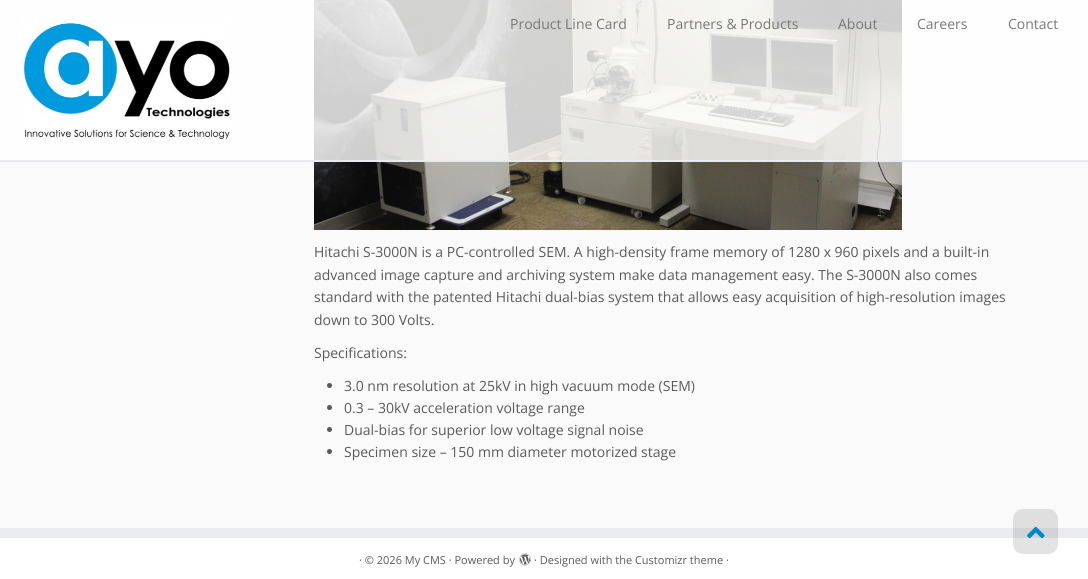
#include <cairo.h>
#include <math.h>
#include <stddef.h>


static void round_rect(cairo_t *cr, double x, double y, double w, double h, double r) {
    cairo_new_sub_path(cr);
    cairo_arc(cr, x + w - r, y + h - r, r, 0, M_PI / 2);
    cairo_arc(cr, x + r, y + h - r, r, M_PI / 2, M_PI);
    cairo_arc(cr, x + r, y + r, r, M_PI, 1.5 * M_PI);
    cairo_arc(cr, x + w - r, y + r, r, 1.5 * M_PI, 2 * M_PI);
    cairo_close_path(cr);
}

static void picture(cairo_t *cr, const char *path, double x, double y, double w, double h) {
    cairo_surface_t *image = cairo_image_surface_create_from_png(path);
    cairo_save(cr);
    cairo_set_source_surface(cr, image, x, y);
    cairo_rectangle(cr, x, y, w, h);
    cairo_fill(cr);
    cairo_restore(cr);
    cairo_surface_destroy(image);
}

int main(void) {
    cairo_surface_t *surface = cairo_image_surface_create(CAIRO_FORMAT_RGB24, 1088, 579);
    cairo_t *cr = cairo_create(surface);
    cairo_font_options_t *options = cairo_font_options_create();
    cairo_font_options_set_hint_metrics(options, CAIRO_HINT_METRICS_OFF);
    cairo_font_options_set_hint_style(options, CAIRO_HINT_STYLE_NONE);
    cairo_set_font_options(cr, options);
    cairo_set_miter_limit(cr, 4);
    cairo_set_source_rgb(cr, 0.98, 0.98, 0.98);
    cairo_paint(cr);
    picture(cr, "img2.png", 314, 0, 588, 230);
    cairo_set_source_rgba(cr, 1, 1, 1, 0.8);
    cairo_rectangle(cr, 0, 0, 1088, 160);
    cairo_fill(cr);
    cairo_set_source_rgb(cr, 0.914, 0.918, 0.933);
    cairo_rectangle(cr, 0, 160, 1088, 2);
    cairo_fill(cr);
    picture(cr, "img1.png", 20, 18, 210, 121);
    cairo_select_font_face(cr, "Open Sans", CAIRO_FONT_SLANT_NORMAL, CAIRO_FONT_WEIGHT_NORMAL);
    cairo_set_font_size(cr, 14);
    cairo_set_source_rgb(cr, 0.467, 0.467, 0.467);
    cairo_move_to(cr, 510, 29);
    cairo_show_text(cr, "Product Line Card");
    cairo_move_to(cr, 667, 29);
    cairo_show_text(cr, "Partners & Products");
    cairo_move_to(cr, 838, 29);
    cairo_show_text(cr, "About");
    cairo_move_to(cr, 917, 29);
    cairo_show_text(cr, "Careers");
    cairo_move_to(cr, 1008, 29);
    cairo_show_text(cr, "Contact");
    cairo_set_source_rgb(cr, 0.353, 0.353, 0.353);
    cairo_move_to(cr, 314, 257);
    cairo_show_text(cr, "Hitachi S-3000N is a PC-controlled SEM. A high-density frame memory of 1280 x 960 pixels and a built-in");
    cairo_move_to(cr, 314, 280);
    cairo_show_text(cr, "advanced image capture and archiving system make data management easy. The S-3000N also comes");
    cairo_move_to(cr, 314, 302);
    cairo_show_text(cr, "standard with the patented Hitachi dual-bias system that allows easy acquisition of high-resolution images");
    cairo_move_to(cr, 314, 325);
    cairo_show_text(cr, "down to 300 Volts.");
    cairo_move_to(cr, 314, 358);
    cairo_show_text(cr, "Specifications:");
    cairo_new_path(cr);
    cairo_arc(cr, 329.5, 385.5, 2.5, 0, 2 * M_PI);
    cairo_fill(cr);
    cairo_move_to(cr, 344, 391);
    cairo_show_text(cr, "3.0 nm resolution at 25kV in high vacuum mode (SEM)");
    cairo_new_path(cr);
    cairo_arc(cr, 329.5, 407.5, 2.5, 0, 2 * M_PI);
    cairo_fill(cr);
    cairo_move_to(cr, 344, 413);
    cairo_show_text(cr, "0.3 – 30kV acceleration voltage range");
    cairo_new_path(cr);
    cairo_arc(cr, 329.5, 429.5, 2.5, 0, 2 * M_PI);
    cairo_fill(cr);
    cairo_move_to(cr, 344, 435);
    cairo_show_text(cr, "Dual-bias for superior low voltage signal noise");
    cairo_new_path(cr);
    cairo_arc(cr, 329.5, 451.5, 2.5, 0, 2 * M_PI);
    cairo_fill(cr);
    cairo_move_to(cr, 344, 457);
    cairo_show_text(cr, "Specimen size – 150 mm diameter motorized stage");
    cairo_set_source_rgb(cr, 0.914, 0.918, 0.933);
    cairo_rectangle(cr, 0, 528, 1088, 10);
    cairo_fill(cr);
    cairo_set_source_rgb(cr, 1, 1, 1);
    cairo_rectangle(cr, 0, 538, 1088, 41);
    cairo_fill(cr);
    cairo_set_font_size(cr, 11);
    cairo_set_source_rgb(cr, 0.353, 0.353, 0.353);
    cairo_move_to(cr, 359, 564);
    cairo_show_text(cr, "· © 2026 My CMS · Powered by");
    picture(cr, "img3.png", 519, 553, 12, 13);
    cairo_move_to(cr, 534, 564);
    cairo_show_text(cr, "· Designed with the Customizr theme ·");
    cairo_set_source_rgba(cr, 0.467, 0.467, 0.467, 0.2);
    round_rect(cr, 1013, 509, 45, 45, 10);
    cairo_fill(cr);
    picture(cr, "img4.png", 1027, 526, 18, 13);
    cairo_surface_write_to_png(surface, "page.png");
    cairo_font_options_destroy(options);
    cairo_destroy(cr);
    cairo_surface_destroy(surface);
    return 0;
}
